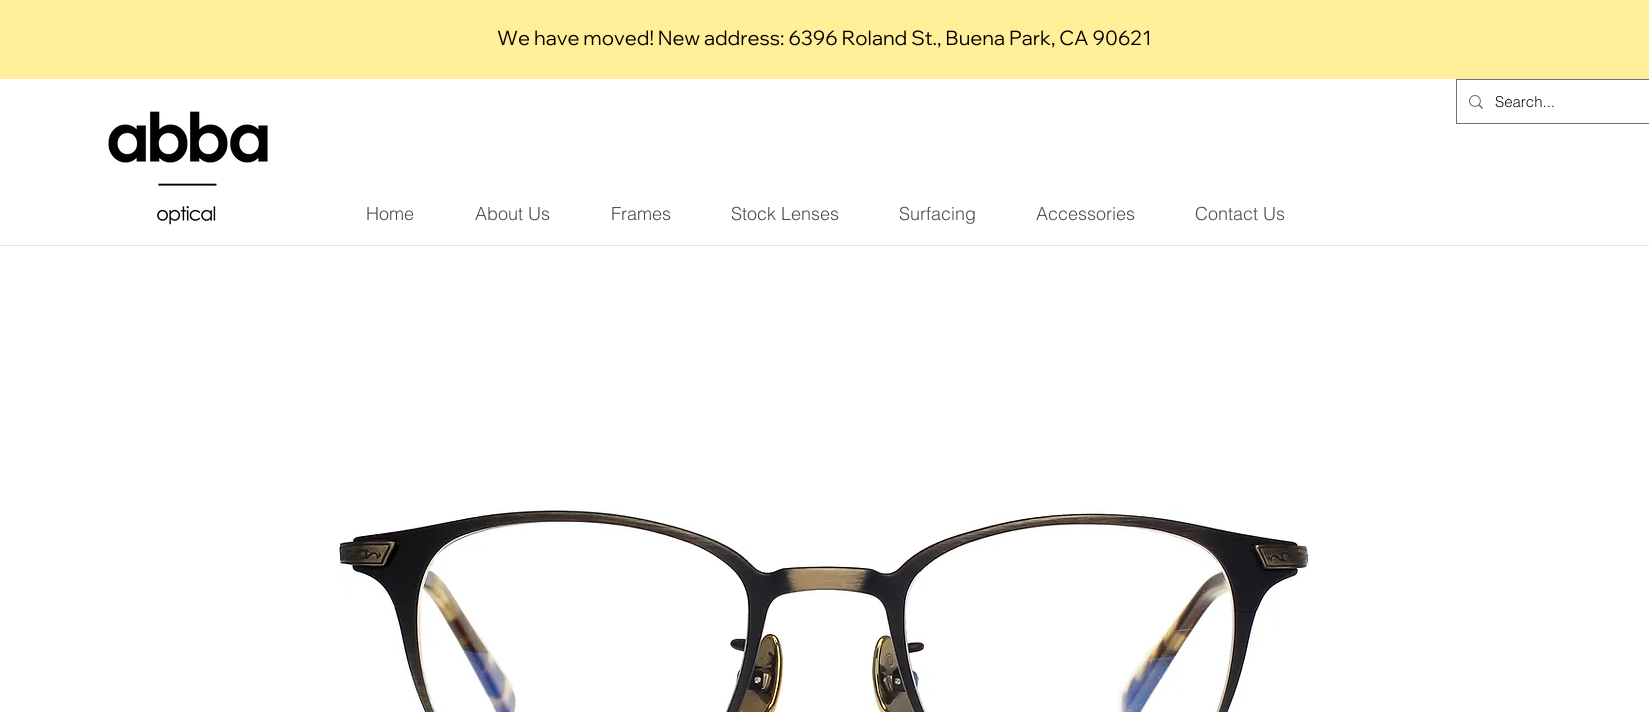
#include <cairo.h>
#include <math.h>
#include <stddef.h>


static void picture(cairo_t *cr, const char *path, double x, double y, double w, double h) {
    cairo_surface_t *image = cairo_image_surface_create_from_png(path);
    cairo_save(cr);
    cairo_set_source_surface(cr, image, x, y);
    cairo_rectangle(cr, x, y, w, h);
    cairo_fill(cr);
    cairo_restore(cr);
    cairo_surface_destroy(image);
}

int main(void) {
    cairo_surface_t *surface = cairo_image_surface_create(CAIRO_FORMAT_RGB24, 1649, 712);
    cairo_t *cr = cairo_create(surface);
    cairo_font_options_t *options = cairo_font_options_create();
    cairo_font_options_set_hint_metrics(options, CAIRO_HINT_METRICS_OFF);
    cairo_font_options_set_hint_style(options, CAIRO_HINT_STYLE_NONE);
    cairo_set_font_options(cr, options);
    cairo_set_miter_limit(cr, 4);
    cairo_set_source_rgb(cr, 1, 1, 1);
    cairo_paint(cr);
    cairo_set_source_rgb(cr, 1, 0.937, 0.596);
    cairo_rectangle(cr, 0, 0, 1649, 79);
    cairo_fill(cr);
    cairo_select_font_face(cr, "Wix Madefor Display", CAIRO_FONT_SLANT_NORMAL, CAIRO_FONT_WEIGHT_NORMAL);
    cairo_set_font_size(cr, 20);
    cairo_set_source_rgb(cr, 0, 0, 0);
    cairo_move_to(cr, 497, 45);
    cairo_show_text(cr, "We have moved! New address: 6396 Roland St., Buena Park, CA 90621");
    cairo_rectangle(cr, 1456.5, 79.5, 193, 44);
    cairo_set_source_rgb(cr, 0.439, 0.447, 0.467);
    cairo_set_line_width(cr, 1);
    cairo_stroke(cr);
    picture(cr, "img1.png", 1469, 95, 14, 14);
    cairo_select_font_face(cr, "helvetica Light", CAIRO_FONT_SLANT_NORMAL, CAIRO_FONT_WEIGHT_NORMAL);
    cairo_set_font_size(cr, 15);
    cairo_set_source_rgb(cr, 0.067, 0.078, 0.114);
    cairo_move_to(cr, 1495, 107);
    cairo_show_text(cr, "Search...");
    picture(cr, "img2.png", 108, 111, 160, 114);
    cairo_set_font_size(cr, 18);
    cairo_set_source_rgb(cr, 0.294, 0.294, 0.294);
    cairo_move_to(cr, 366, 220);
    cairo_show_text(cr, "Home");
    cairo_move_to(cr, 475, 220);
    cairo_show_text(cr, "About Us");
    cairo_move_to(cr, 611, 220);
    cairo_show_text(cr, "Frames");
    cairo_move_to(cr, 731, 220);
    cairo_show_text(cr, "Stock Lenses");
    cairo_move_to(cr, 899, 220);
    cairo_show_text(cr, "Surfacing");
    cairo_move_to(cr, 1036, 220);
    cairo_show_text(cr, "Accessories");
    cairo_move_to(cr, 1195, 220);
    cairo_show_text(cr, "Contact Us");
    cairo_set_source_rgb(cr, 0.89, 0.89, 0.89);
    cairo_rectangle(cr, 0, 245, 1649, 1);
    cairo_fill(cr);
    picture(cr, "img3.png", 337, 510, 974, 202);
    cairo_surface_write_to_png(surface, "page.png");
    cairo_font_options_destroy(options);
    cairo_destroy(cr);
    cairo_surface_destroy(surface);
    return 0;
}
